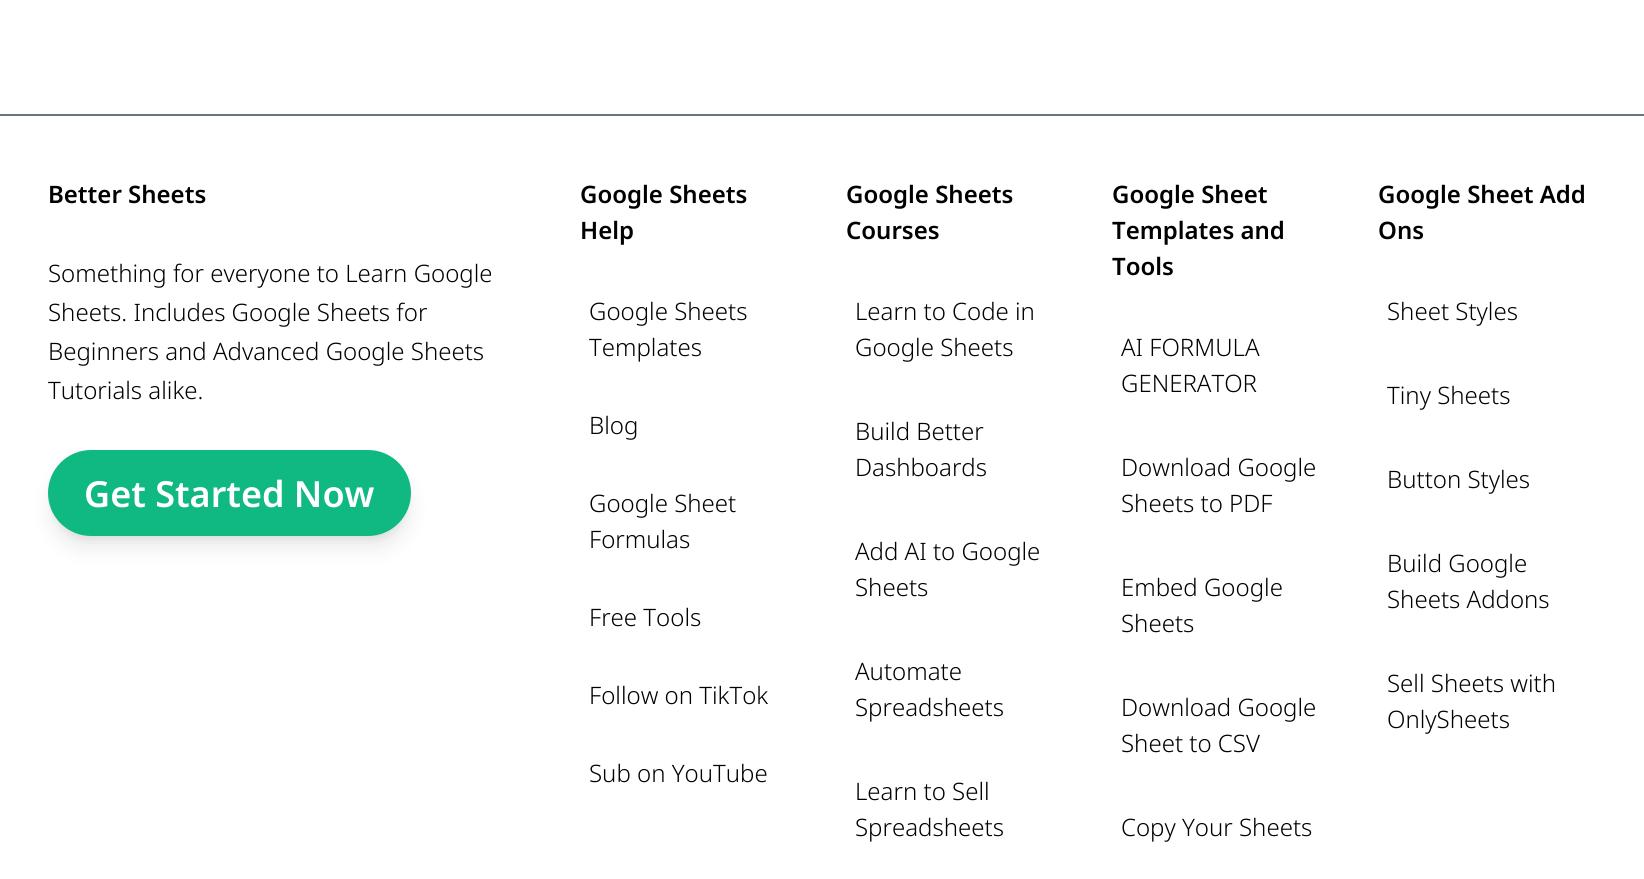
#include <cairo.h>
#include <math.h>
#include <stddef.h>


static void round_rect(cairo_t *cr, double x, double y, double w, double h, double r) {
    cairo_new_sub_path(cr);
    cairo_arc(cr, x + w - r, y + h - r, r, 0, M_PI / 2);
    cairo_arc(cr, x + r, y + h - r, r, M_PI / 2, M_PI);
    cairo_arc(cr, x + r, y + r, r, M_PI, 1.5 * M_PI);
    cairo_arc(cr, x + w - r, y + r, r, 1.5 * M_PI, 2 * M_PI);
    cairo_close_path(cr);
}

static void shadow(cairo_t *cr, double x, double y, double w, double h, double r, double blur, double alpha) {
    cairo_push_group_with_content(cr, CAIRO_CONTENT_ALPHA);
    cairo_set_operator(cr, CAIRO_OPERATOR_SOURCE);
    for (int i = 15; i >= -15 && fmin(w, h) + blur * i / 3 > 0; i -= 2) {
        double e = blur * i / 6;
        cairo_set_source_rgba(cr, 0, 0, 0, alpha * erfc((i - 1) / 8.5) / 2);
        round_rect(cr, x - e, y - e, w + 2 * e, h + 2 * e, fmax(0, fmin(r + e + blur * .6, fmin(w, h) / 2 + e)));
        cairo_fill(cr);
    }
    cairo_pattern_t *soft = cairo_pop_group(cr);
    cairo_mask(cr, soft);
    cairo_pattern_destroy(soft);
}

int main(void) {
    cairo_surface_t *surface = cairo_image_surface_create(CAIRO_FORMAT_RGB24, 1644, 879);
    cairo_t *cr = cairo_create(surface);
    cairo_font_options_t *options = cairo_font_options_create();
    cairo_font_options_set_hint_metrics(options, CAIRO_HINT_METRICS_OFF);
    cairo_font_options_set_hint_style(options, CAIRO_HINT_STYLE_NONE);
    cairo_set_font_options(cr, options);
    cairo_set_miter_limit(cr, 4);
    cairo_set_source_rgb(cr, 1, 1, 1);
    cairo_paint(cr);
    cairo_set_source_rgb(cr, 0.42, 0.447, 0.502);
    cairo_rectangle(cr, 0, 114, 1644, 2);
    cairo_fill(cr);
    cairo_select_font_face(cr, "Noto Sans SemiBold", CAIRO_FONT_SLANT_NORMAL, CAIRO_FONT_WEIGHT_NORMAL);
    cairo_set_font_size(cr, 24);
    cairo_set_source_rgb(cr, 0, 0, 0);
    cairo_move_to(cr, 48, 203);
    cairo_show_text(cr, "Better Sheets");
    cairo_select_font_face(cr, "Noto Sans Light", CAIRO_FONT_SLANT_NORMAL, CAIRO_FONT_WEIGHT_NORMAL);
    cairo_move_to(cr, 48, 282);
    cairo_show_text(cr, "Something for everyone to Learn Google");
    cairo_move_to(cr, 48, 321);
    cairo_show_text(cr, "Sheets. Includes Google Sheets for");
    cairo_move_to(cr, 48, 360);
    cairo_show_text(cr, "Beginners and Advanced Google Sheets");
    cairo_move_to(cr, 48, 399);
    cairo_show_text(cr, "Tutorials alike.");
    cairo_set_source_rgb(cr, 0, 0, 0);
    shadow(cr, 54, 462, 351, 74, 37, 4.5, 0.1);
    shadow(cr, 53, 470, 354, 76, 38, 11, 0.1);
    cairo_set_source_rgb(cr, 0.063, 0.725, 0.506);
    round_rect(cr, 48, 450, 363, 86, 43);
    cairo_fill(cr);
    cairo_select_font_face(cr, "Noto Sans SemiBold", CAIRO_FONT_SLANT_NORMAL, CAIRO_FONT_WEIGHT_NORMAL);
    cairo_set_font_size(cr, 36);
    cairo_set_source_rgb(cr, 1, 1, 1);
    cairo_move_to(cr, 84, 507);
    cairo_show_text(cr, "Get Started Now");
    cairo_set_font_size(cr, 24);
    cairo_set_source_rgb(cr, 0, 0, 0);
    cairo_move_to(cr, 580, 203);
    cairo_show_text(cr, "Google Sheets");
    cairo_move_to(cr, 580, 239);
    cairo_show_text(cr, "Help");
    cairo_select_font_face(cr, "Noto Sans Light", CAIRO_FONT_SLANT_NORMAL, CAIRO_FONT_WEIGHT_NORMAL);
    cairo_move_to(cr, 589, 320);
    cairo_show_text(cr, "Google Sheets");
    cairo_move_to(cr, 589, 356);
    cairo_show_text(cr, "Templates");
    cairo_move_to(cr, 589, 434);
    cairo_show_text(cr, "Blog");
    cairo_move_to(cr, 589, 512);
    cairo_show_text(cr, "Google Sheet");
    cairo_move_to(cr, 589, 548);
    cairo_show_text(cr, "Formulas");
    cairo_move_to(cr, 589, 626);
    cairo_show_text(cr, "Free Tools");
    cairo_move_to(cr, 589, 704);
    cairo_show_text(cr, "Follow on TikTok");
    cairo_move_to(cr, 589, 782);
    cairo_show_text(cr, "Sub on YouTube");
    cairo_select_font_face(cr, "Noto Sans SemiBold", CAIRO_FONT_SLANT_NORMAL, CAIRO_FONT_WEIGHT_NORMAL);
    cairo_move_to(cr, 846, 203);
    cairo_show_text(cr, "Google Sheets");
    cairo_move_to(cr, 846, 239);
    cairo_show_text(cr, "Courses");
    cairo_select_font_face(cr, "Noto Sans Light", CAIRO_FONT_SLANT_NORMAL, CAIRO_FONT_WEIGHT_NORMAL);
    cairo_move_to(cr, 855, 320);
    cairo_show_text(cr, "Learn to Code in");
    cairo_move_to(cr, 855, 356);
    cairo_show_text(cr, "Google Sheets");
    cairo_move_to(cr, 855, 440);
    cairo_show_text(cr, "Build Better");
    cairo_move_to(cr, 855, 476);
    cairo_show_text(cr, "Dashboards");
    cairo_move_to(cr, 855, 560);
    cairo_show_text(cr, "Add AI to Google");
    cairo_move_to(cr, 855, 596);
    cairo_show_text(cr, "Sheets");
    cairo_move_to(cr, 855, 680);
    cairo_show_text(cr, "Automate");
    cairo_move_to(cr, 855, 716);
    cairo_show_text(cr, "Spreadsheets");
    cairo_move_to(cr, 855, 800);
    cairo_show_text(cr, "Learn to Sell");
    cairo_move_to(cr, 855, 836);
    cairo_show_text(cr, "Spreadsheets");
    cairo_select_font_face(cr, "Noto Sans SemiBold", CAIRO_FONT_SLANT_NORMAL, CAIRO_FONT_WEIGHT_NORMAL);
    cairo_move_to(cr, 1112, 203);
    cairo_show_text(cr, "Google Sheet");
    cairo_move_to(cr, 1112, 239);
    cairo_show_text(cr, "Templates and");
    cairo_move_to(cr, 1112, 275);
    cairo_show_text(cr, "Tools");
    cairo_select_font_face(cr, "Noto Sans Light", CAIRO_FONT_SLANT_NORMAL, CAIRO_FONT_WEIGHT_NORMAL);
    cairo_move_to(cr, 1121, 356);
    cairo_show_text(cr, "AI FORMULA");
    cairo_move_to(cr, 1121, 392);
    cairo_show_text(cr, "GENERATOR");
    cairo_move_to(cr, 1121, 476);
    cairo_show_text(cr, "Download Google");
    cairo_move_to(cr, 1121, 512);
    cairo_show_text(cr, "Sheets to PDF");
    cairo_move_to(cr, 1121, 596);
    cairo_show_text(cr, "Embed Google");
    cairo_move_to(cr, 1121, 632);
    cairo_show_text(cr, "Sheets");
    cairo_move_to(cr, 1121, 716);
    cairo_show_text(cr, "Download Google");
    cairo_move_to(cr, 1121, 752);
    cairo_show_text(cr, "Sheet to CSV");
    cairo_move_to(cr, 1121, 836);
    cairo_show_text(cr, "Copy Your Sheets");
    cairo_select_font_face(cr, "Noto Sans SemiBold", CAIRO_FONT_SLANT_NORMAL, CAIRO_FONT_WEIGHT_NORMAL);
    cairo_move_to(cr, 1378, 203);
    cairo_show_text(cr, "Google Sheet Add");
    cairo_move_to(cr, 1378, 239);
    cairo_show_text(cr, "Ons");
    cairo_select_font_face(cr, "Noto Sans Light", CAIRO_FONT_SLANT_NORMAL, CAIRO_FONT_WEIGHT_NORMAL);
    cairo_move_to(cr, 1387, 320);
    cairo_show_text(cr, "Sheet Styles");
    cairo_move_to(cr, 1387, 404);
    cairo_show_text(cr, "Tiny Sheets");
    cairo_move_to(cr, 1387, 488);
    cairo_show_text(cr, "Button Styles");
    cairo_move_to(cr, 1387, 572);
    cairo_show_text(cr, "Build Google");
    cairo_move_to(cr, 1387, 608);
    cairo_show_text(cr, "Sheets Addons");
    cairo_move_to(cr, 1387, 692);
    cairo_show_text(cr, "Sell Sheets with");
    cairo_move_to(cr, 1387, 728);
    cairo_show_text(cr, "OnlySheets");
    cairo_surface_write_to_png(surface, "page.png");
    cairo_font_options_destroy(options);
    cairo_destroy(cr);
    cairo_surface_destroy(surface);
    return 0;
}
